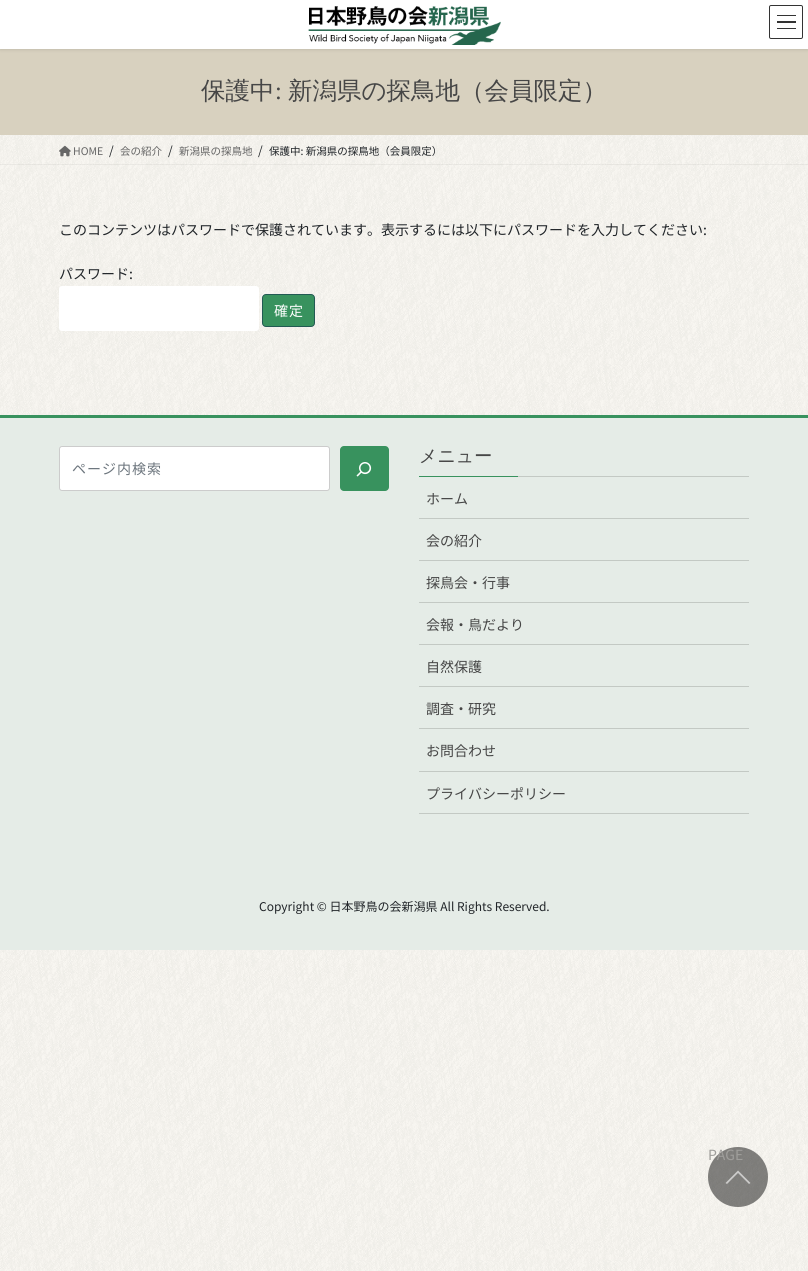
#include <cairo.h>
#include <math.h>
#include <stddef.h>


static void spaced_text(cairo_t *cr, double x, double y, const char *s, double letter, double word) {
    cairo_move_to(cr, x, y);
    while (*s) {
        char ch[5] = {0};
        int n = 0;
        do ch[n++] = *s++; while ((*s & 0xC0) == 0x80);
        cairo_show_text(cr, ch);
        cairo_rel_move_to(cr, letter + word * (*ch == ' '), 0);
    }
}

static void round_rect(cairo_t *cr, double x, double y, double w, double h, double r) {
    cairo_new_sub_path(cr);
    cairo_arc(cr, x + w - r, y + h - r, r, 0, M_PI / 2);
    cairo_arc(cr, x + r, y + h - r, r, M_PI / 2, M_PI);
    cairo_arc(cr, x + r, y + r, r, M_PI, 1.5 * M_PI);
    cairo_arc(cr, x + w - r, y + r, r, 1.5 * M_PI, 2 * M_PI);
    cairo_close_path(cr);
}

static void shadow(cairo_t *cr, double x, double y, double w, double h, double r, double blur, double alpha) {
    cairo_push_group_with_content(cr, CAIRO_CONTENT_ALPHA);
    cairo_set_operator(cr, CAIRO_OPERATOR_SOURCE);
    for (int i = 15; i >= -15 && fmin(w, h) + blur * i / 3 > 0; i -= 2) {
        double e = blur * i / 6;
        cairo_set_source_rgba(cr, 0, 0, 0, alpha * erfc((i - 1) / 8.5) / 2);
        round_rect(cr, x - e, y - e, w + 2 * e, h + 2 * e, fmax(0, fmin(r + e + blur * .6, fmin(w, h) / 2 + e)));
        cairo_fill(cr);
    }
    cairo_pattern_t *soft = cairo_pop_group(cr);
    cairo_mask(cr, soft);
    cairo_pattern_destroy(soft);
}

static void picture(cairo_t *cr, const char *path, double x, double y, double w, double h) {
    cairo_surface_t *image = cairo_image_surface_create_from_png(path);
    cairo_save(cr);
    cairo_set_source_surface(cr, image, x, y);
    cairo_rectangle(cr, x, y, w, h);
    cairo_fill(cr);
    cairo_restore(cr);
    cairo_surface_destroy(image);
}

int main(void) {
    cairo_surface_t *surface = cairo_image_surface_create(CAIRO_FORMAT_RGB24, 808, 1271);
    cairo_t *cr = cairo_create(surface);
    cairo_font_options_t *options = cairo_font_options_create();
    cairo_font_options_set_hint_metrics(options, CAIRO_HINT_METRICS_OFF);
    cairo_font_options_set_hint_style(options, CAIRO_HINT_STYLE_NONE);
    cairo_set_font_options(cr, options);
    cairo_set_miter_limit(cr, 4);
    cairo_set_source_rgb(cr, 1, 1, 1);
    cairo_paint(cr);
    picture(cr, "img1.png", 0, 135, 808, 1136);
    cairo_set_source_rgb(cr, 0.847, 0.82, 0.749);
    cairo_rectangle(cr, 0, 49, 808, 86);
    cairo_fill(cr);
    cairo_set_source_rgb(cr, 0, 0, 0);
    shadow(cr, 0, 1, 808, 49, 0, 1.5, 0.1);
    cairo_set_source_rgb(cr, 1, 1, 1);
    cairo_rectangle(cr, 0, 0, 808, 49);
    cairo_fill(cr);
    picture(cr, "img2.png", 308, 6, 193, 39);
    cairo_set_source_rgb(cr, 0.2, 0.2, 0.2);
    cairo_rectangle(cr, 777, 15, 19, 1);
    cairo_fill(cr);
    cairo_rectangle(cr, 777, 21, 19, 2);
    cairo_fill(cr);
    cairo_rectangle(cr, 777, 28, 19, 1);
    cairo_fill(cr);
    round_rect(cr, 769.5, 5.5, 33, 33, 1.5);
    cairo_set_line_width(cr, 1);
    cairo_stroke(cr);
    cairo_select_font_face(cr, "WenQuanYi Zen Hei Medium", CAIRO_FONT_SLANT_NORMAL, CAIRO_FONT_WEIGHT_NORMAL);
    cairo_set_font_size(cr, 24.5);
    cairo_set_source_rgb(cr, 0.275, 0.275, 0.275);
    cairo_move_to(cr, 201, 99);
    cairo_show_text(cr, "保護中");
    cairo_select_font_face(cr, "Liberation Serif", CAIRO_FONT_SLANT_NORMAL, CAIRO_FONT_WEIGHT_NORMAL);
    cairo_move_to(cr, 275, 99);
    cairo_show_text(cr, ":");
    cairo_select_font_face(cr, "WenQuanYi Zen Hei Medium", CAIRO_FONT_SLANT_NORMAL, CAIRO_FONT_WEIGHT_NORMAL);
    cairo_move_to(cr, 288, 99);
    cairo_show_text(cr, "新潟県の探鳥地（会員限定）");
    cairo_set_source_rgba(cr, 0, 0, 0, 0.05);
    cairo_rectangle(cr, 0, 164, 808, 1);
    cairo_fill(cr);
    picture(cr, "img3.png", 59, 145, 12, 12);
    cairo_select_font_face(cr, "Noto Sans JP", CAIRO_FONT_SLANT_NORMAL, CAIRO_FONT_WEIGHT_NORMAL);
    cairo_set_font_size(cr, 10.5);
    cairo_set_source_rgb(cr, 0.4, 0.4, 0.4);
    cairo_move_to(cr, 73, 155);
    cairo_show_text(cr, "HOME");
    cairo_set_font_size(cr, 12);
    cairo_set_source_rgb(cr, 0.129, 0.145, 0.161);
    cairo_move_to(cr, 109, 155);
    cairo_show_text(cr, "/");
    cairo_set_font_size(cr, 10.5);
    cairo_set_source_rgb(cr, 0.4, 0.4, 0.4);
    cairo_move_to(cr, 120, 155);
    cairo_show_text(cr, "会の紹介");
    cairo_set_font_size(cr, 12);
    cairo_set_source_rgb(cr, 0.129, 0.145, 0.161);
    cairo_move_to(cr, 168, 155);
    cairo_show_text(cr, "/");
    cairo_set_font_size(cr, 10.5);
    cairo_set_source_rgb(cr, 0.4, 0.4, 0.4);
    cairo_move_to(cr, 179, 155);
    cairo_show_text(cr, "新潟県の探鳥地");
    cairo_set_font_size(cr, 12);
    cairo_set_source_rgb(cr, 0.129, 0.145, 0.161);
    cairo_move_to(cr, 258, 155);
    cairo_show_text(cr, "/");
    cairo_set_font_size(cr, 10.5);
    cairo_move_to(cr, 269, 155);
    cairo_show_text(cr, "保護中: 新潟県の探鳥地（会員限定）");
    cairo_set_font_size(cr, 14);
    cairo_move_to(cr, 59, 235);
    cairo_show_text(cr, "このコンテンツはパスワードで保護されています。表示するには以下にパスワードを入力してください:");
    cairo_move_to(cr, 59, 279);
    cairo_show_text(cr, "パスワード:");
    cairo_set_source_rgb(cr, 1, 1, 1);
    round_rect(cr, 59, 286, 200, 45, 3);
    cairo_fill(cr);
    cairo_set_source_rgb(cr, 0.22, 0.573, 0.369);
    round_rect(cr, 262.5, 294.5, 52, 32, 3.5);
    cairo_fill_preserve(cr);
    cairo_set_source_rgb(cr, 0.133, 0.353, 0.325);
    cairo_stroke(cr);
    cairo_set_source_rgb(cr, 1, 1, 1);
    spaced_text(cr, 274, 316, "確定", 1, 0);
    cairo_set_source_rgb(cr, 0.898, 0.925, 0.906);
    cairo_rectangle(cr, 0, 418, 808, 532);
    cairo_fill(cr);
    cairo_set_source_rgb(cr, 0.22, 0.573, 0.369);
    cairo_rectangle(cr, 0, 415, 808, 3);
    cairo_fill(cr);
    cairo_set_source_rgb(cr, 1, 1, 1);
    round_rect(cr, 59.5, 446.5, 270, 44, 2.5);
    cairo_fill_preserve(cr);
    cairo_set_source_rgb(cr, 0.8, 0.8, 0.8);
    cairo_stroke(cr);
    cairo_set_source_rgb(cr, 0.424, 0.459, 0.49);
    spaced_text(cr, 72, 474, "ページ内検索", 1, 0);
    cairo_set_source_rgb(cr, 0.22, 0.573, 0.369);
    round_rect(cr, 340, 446, 49, 45, 4);
    cairo_fill(cr);
    picture(cr, "img4.png", 356, 462, 16, 15);
    cairo_set_source_rgb(cr, 0.765, 0.788, 0.769);
    cairo_rectangle(cr, 518, 476, 231, 1);
    cairo_fill(cr);
    cairo_select_font_face(cr, "WenQuanYi Zen Hei Medium", CAIRO_FONT_SLANT_NORMAL, CAIRO_FONT_WEIGHT_NORMAL);
    cairo_set_font_size(cr, 18);
    cairo_set_source_rgb(cr, 0.275, 0.275, 0.275);
    cairo_move_to(cr, 419, 462);
    cairo_show_text(cr, "メニュー");
    cairo_set_source_rgb(cr, 0.22, 0.573, 0.369);
    cairo_rectangle(cr, 419, 476, 99, 1);
    cairo_fill(cr);
    cairo_set_source_rgb(cr, 0.765, 0.788, 0.769);
    cairo_rectangle(cr, 419, 518, 330, 1);
    cairo_fill(cr);
    cairo_select_font_face(cr, "Noto Sans JP", CAIRO_FONT_SLANT_NORMAL, CAIRO_FONT_WEIGHT_NORMAL);
    cairo_set_font_size(cr, 14);
    cairo_set_source_rgb(cr, 0.275, 0.275, 0.275);
    cairo_move_to(cr, 426, 504);
    cairo_show_text(cr, "ホーム");
    cairo_set_source_rgb(cr, 0.765, 0.788, 0.769);
    cairo_rectangle(cr, 419, 560, 330, 1);
    cairo_fill(cr);
    cairo_set_source_rgb(cr, 0.275, 0.275, 0.275);
    cairo_move_to(cr, 426, 546);
    cairo_show_text(cr, "会の紹介");
    cairo_set_source_rgb(cr, 0.765, 0.788, 0.769);
    cairo_rectangle(cr, 419, 602, 330, 1);
    cairo_fill(cr);
    cairo_set_source_rgb(cr, 0.275, 0.275, 0.275);
    cairo_move_to(cr, 426, 588);
    cairo_show_text(cr, "探鳥会・行事");
    cairo_set_source_rgb(cr, 0.765, 0.788, 0.769);
    cairo_rectangle(cr, 419, 644, 330, 1);
    cairo_fill(cr);
    cairo_set_source_rgb(cr, 0.275, 0.275, 0.275);
    cairo_move_to(cr, 426, 630);
    cairo_show_text(cr, "会報・鳥だより");
    cairo_set_source_rgb(cr, 0.765, 0.788, 0.769);
    cairo_rectangle(cr, 419, 686, 330, 1);
    cairo_fill(cr);
    cairo_set_source_rgb(cr, 0.275, 0.275, 0.275);
    cairo_move_to(cr, 426, 672);
    cairo_show_text(cr, "自然保護");
    cairo_set_source_rgb(cr, 0.765, 0.788, 0.769);
    cairo_rectangle(cr, 419, 728, 330, 1);
    cairo_fill(cr);
    cairo_set_source_rgb(cr, 0.275, 0.275, 0.275);
    cairo_move_to(cr, 426, 714);
    cairo_show_text(cr, "調査・研究");
    cairo_set_source_rgb(cr, 0.765, 0.788, 0.769);
    cairo_rectangle(cr, 419, 771, 330, 1);
    cairo_fill(cr);
    cairo_set_source_rgb(cr, 0.275, 0.275, 0.275);
    cairo_move_to(cr, 426, 756);
    cairo_show_text(cr, "お問合わせ");
    cairo_set_source_rgb(cr, 0.765, 0.788, 0.769);
    cairo_rectangle(cr, 419, 813, 330, 1);
    cairo_fill(cr);
    cairo_set_source_rgb(cr, 0.275, 0.275, 0.275);
    cairo_move_to(cr, 426, 799);
    cairo_show_text(cr, "プライバシーポリシー");
    cairo_set_font_size(cr, 12);
    cairo_set_source_rgb(cr, 0.129, 0.145, 0.161);
    cairo_move_to(cr, 259, 911);
    cairo_show_text(cr, "Copyright © 日本野鳥の会新潟県 All Rights Reserved.");
    cairo_set_source_rgba(cr, 0, 0, 0, 0.48);
    cairo_new_path(cr);
    cairo_arc(cr, 738, 1177, 30, 0, 2 * M_PI);
    cairo_fill(cr);
    cairo_set_source_rgba(cr, 1, 1, 1, 0.6);
    cairo_new_path(cr);
    cairo_move_to(cr, 750.5, 1183);
    cairo_line_to(cr, 749, 1184);
    cairo_line_to(cr, 738, 1173);
    cairo_line_to(cr, 727, 1184);
    cairo_line_to(cr, 725.5, 1183);
    cairo_line_to(cr, 738, 1170.5);
    cairo_close_path(cr);
    cairo_fill(cr);
    cairo_set_font_size(cr, 14);
    cairo_set_source_rgb(cr, 0.624, 0.62, 0.608);
    cairo_move_to(cr, 708, 1160);
    cairo_show_text(cr, "PAGE");
    cairo_surface_write_to_png(surface, "page.png");
    cairo_font_options_destroy(options);
    cairo_destroy(cr);
    cairo_surface_destroy(surface);
    return 0;
}
